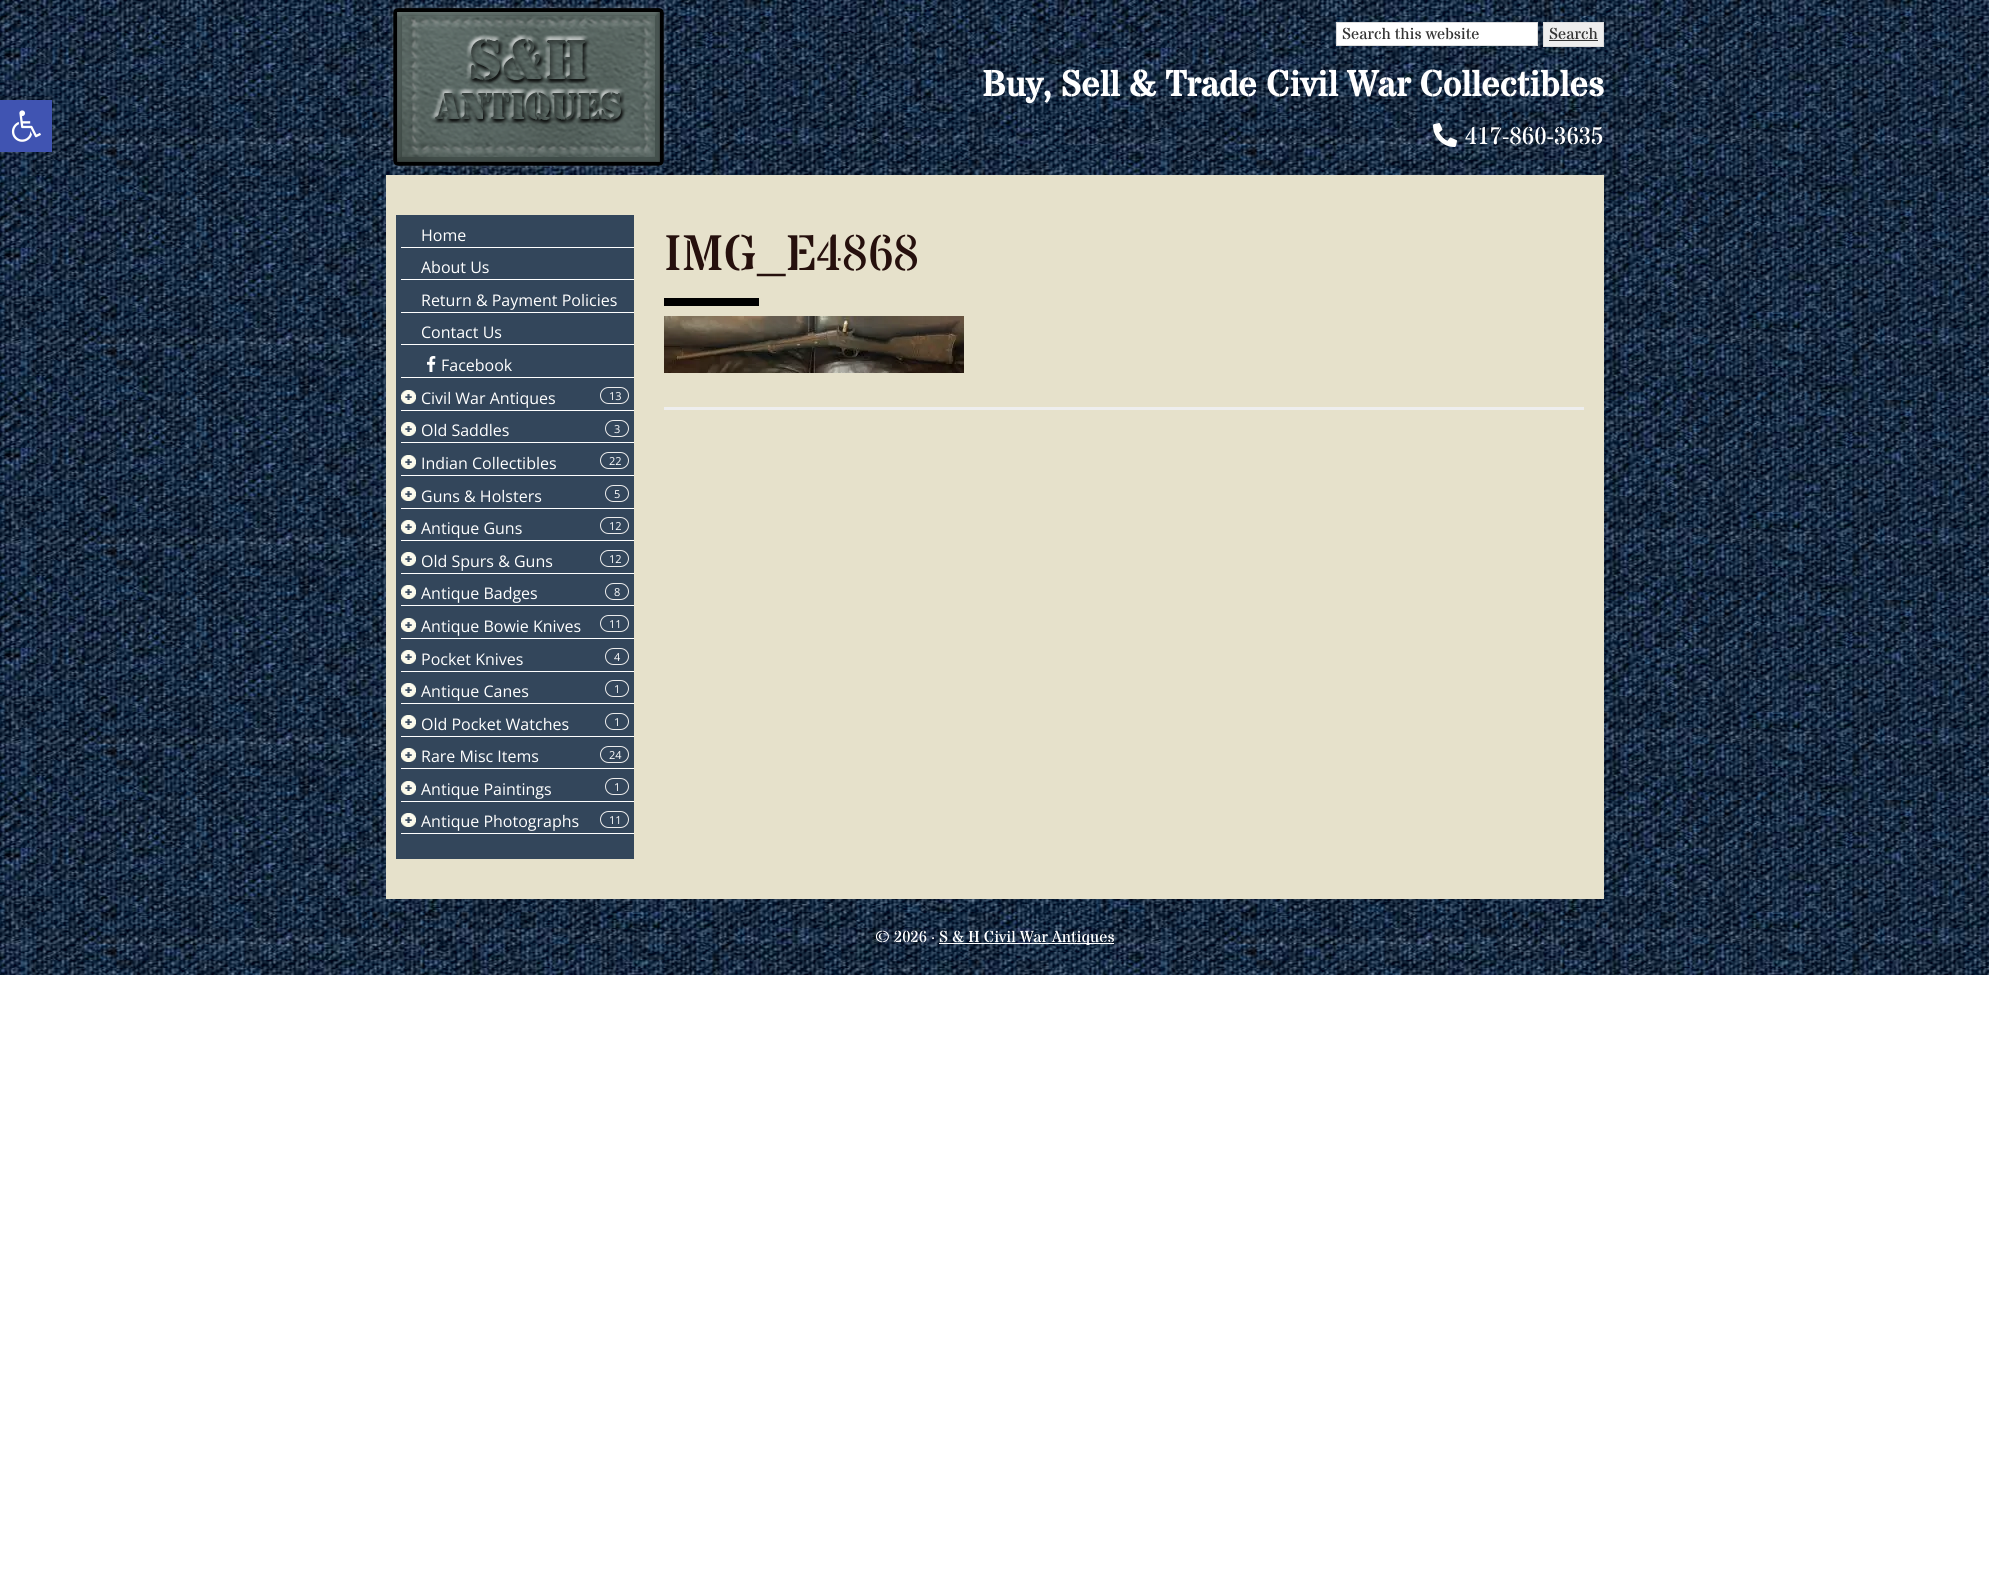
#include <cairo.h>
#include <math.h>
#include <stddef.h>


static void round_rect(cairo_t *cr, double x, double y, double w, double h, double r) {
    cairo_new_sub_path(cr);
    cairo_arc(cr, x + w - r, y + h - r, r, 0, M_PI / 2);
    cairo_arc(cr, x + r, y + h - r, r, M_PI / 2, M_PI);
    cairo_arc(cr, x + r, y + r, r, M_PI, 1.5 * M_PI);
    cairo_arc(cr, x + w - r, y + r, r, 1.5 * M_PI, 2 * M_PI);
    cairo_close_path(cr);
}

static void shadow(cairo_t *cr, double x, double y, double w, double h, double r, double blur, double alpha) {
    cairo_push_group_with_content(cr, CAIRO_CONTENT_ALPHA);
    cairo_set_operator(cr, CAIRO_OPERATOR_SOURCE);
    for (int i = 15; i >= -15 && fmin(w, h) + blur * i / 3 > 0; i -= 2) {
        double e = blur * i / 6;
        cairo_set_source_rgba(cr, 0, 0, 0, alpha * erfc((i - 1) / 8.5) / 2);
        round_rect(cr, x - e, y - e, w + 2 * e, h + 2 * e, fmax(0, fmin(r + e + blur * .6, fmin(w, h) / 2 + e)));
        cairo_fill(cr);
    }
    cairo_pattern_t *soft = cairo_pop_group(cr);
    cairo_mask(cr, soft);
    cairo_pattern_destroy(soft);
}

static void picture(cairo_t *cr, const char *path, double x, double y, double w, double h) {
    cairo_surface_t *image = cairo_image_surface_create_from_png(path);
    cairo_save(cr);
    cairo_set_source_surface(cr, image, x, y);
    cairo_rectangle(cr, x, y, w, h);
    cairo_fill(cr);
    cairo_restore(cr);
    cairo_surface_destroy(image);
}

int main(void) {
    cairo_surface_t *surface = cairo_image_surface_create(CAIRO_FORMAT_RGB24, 1989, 1591);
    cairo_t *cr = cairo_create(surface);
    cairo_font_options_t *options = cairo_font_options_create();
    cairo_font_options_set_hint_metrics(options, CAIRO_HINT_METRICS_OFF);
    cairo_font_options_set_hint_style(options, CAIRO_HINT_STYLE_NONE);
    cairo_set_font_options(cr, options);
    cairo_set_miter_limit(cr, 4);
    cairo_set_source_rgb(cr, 1, 1, 1);
    cairo_paint(cr);
    picture(cr, "img2.png", 0, 0, 1989, 975);
    cairo_set_source_rgb(cr, 0, 0, 0);
    shadow(cr, 0, 100, 52, 52, 0, 5, 0.1);
    cairo_set_source_rgb(cr, 0.251, 0.329, 0.698);
    cairo_rectangle(cr, 0, 100, 52, 52);
    cairo_fill(cr);
    picture(cr, "img1.png", 11, 110, 30, 32);
    picture(cr, "img3.png", 389, 4, 279, 166);
    cairo_set_source_rgb(cr, 1, 1, 1);
    cairo_rectangle(cr, 1336.5, 22.5, 201, 23);
    cairo_fill_preserve(cr);
    cairo_set_source_rgb(cr, 0.867, 0.867, 0.867);
    cairo_set_line_width(cr, 1);
    cairo_stroke(cr);
    cairo_select_font_face(cr, "Stardos Stencil", CAIRO_FONT_SLANT_NORMAL, CAIRO_FONT_WEIGHT_NORMAL);
    cairo_set_font_size(cr, 16);
    cairo_set_source_rgb(cr, 0.2, 0.2, 0.2);
    cairo_move_to(cr, 1342, 39);
    cairo_show_text(cr, "Search this website");
    cairo_set_source_rgb(cr, 0.933, 0.933, 0.933);
    cairo_rectangle(cr, 1543.5, 22.5, 60, 24);
    cairo_fill_preserve(cr);
    cairo_set_source_rgb(cr, 0.867, 0.867, 0.867);
    cairo_stroke(cr);
    cairo_set_source_rgb(cr, 0.2, 0.2, 0.2);
    cairo_move_to(cr, 1549, 39);
    cairo_show_text(cr, "Search");
    cairo_rectangle(cr, 1549, 40, 49, 1);
    cairo_fill(cr);
    cairo_select_font_face(cr, "Stardos Stencil", CAIRO_FONT_SLANT_NORMAL, CAIRO_FONT_WEIGHT_BOLD);
    cairo_set_font_size(cr, 36);
    cairo_set_source_rgb(cr, 1, 1, 1);
    cairo_move_to(cr, 982, 96);
    cairo_show_text(cr, "Buy, Sell & Trade Civil War Collectibles");
    picture(cr, "img4.png", 1433, 123, 24, 24);
    cairo_select_font_face(cr, "Stardos Stencil", CAIRO_FONT_SLANT_NORMAL, CAIRO_FONT_WEIGHT_NORMAL);
    cairo_set_font_size(cr, 24);
    cairo_move_to(cr, 1465, 144);
    cairo_show_text(cr, "417-860-3635");
    cairo_set_source_rgb(cr, 0.902, 0.882, 0.796);
    cairo_rectangle(cr, 386, 175, 1218, 724);
    cairo_fill(cr);
    cairo_set_source_rgb(cr, 0.2, 0.275, 0.357);
    cairo_rectangle(cr, 396, 215, 238, 644);
    cairo_fill(cr);
    cairo_set_source_rgb(cr, 1, 1, 1);
    cairo_rectangle(cr, 401, 247, 233, 1);
    cairo_fill(cr);
    cairo_select_font_face(cr, "Open Sans", CAIRO_FONT_SLANT_NORMAL, CAIRO_FONT_WEIGHT_NORMAL);
    cairo_set_font_size(cr, 16);
    cairo_move_to(cr, 421, 241);
    cairo_show_text(cr, "Home");
    cairo_rectangle(cr, 401, 279, 233, 1);
    cairo_fill(cr);
    cairo_move_to(cr, 421, 273);
    cairo_show_text(cr, "About Us");
    cairo_rectangle(cr, 401, 312, 233, 1);
    cairo_fill(cr);
    cairo_move_to(cr, 421, 306);
    cairo_show_text(cr, "Return & Payment Policies");
    cairo_rectangle(cr, 401, 344, 233, 1);
    cairo_fill(cr);
    cairo_move_to(cr, 421, 338);
    cairo_show_text(cr, "Contact Us");
    cairo_rectangle(cr, 401, 377, 233, 1);
    cairo_fill(cr);
    picture(cr, "img5.png", 427, 356, 9, 16);
    cairo_move_to(cr, 441, 371);
    cairo_show_text(cr, "Facebook");
    picture(cr, "img6.png", 401, 390, 15, 14);
    cairo_rectangle(cr, 401, 410, 233, 1);
    cairo_fill(cr);
    cairo_move_to(cr, 421, 404);
    cairo_show_text(cr, "Civil War Antiques");
    round_rect(cr, 600.5, 387.5, 28, 16, 8);
    cairo_set_source_rgb(cr, 0.918, 0.918, 0.918);
    cairo_stroke(cr);
    cairo_set_font_size(cr, 11);
    cairo_set_source_rgb(cr, 1, 1, 1);
    cairo_move_to(cr, 609, 400);
    cairo_show_text(cr, "13");
    picture(cr, "img6.png", 401, 422, 15, 14);
    cairo_rectangle(cr, 401, 442, 233, 1);
    cairo_fill(cr);
    cairo_set_font_size(cr, 16);
    cairo_move_to(cr, 421, 436);
    cairo_show_text(cr, "Old Saddles");
    round_rect(cr, 605.5, 420.5, 23, 16, 8);
    cairo_set_source_rgb(cr, 0.918, 0.918, 0.918);
    cairo_stroke(cr);
    cairo_set_font_size(cr, 11);
    cairo_set_source_rgb(cr, 1, 1, 1);
    cairo_move_to(cr, 614, 433);
    cairo_show_text(cr, "3");
    picture(cr, "img6.png", 401, 455, 15, 14);
    cairo_rectangle(cr, 401, 475, 233, 1);
    cairo_fill(cr);
    cairo_set_font_size(cr, 16);
    cairo_move_to(cr, 421, 469);
    cairo_show_text(cr, "Indian Collectibles");
    round_rect(cr, 600.5, 452.5, 28, 16, 8);
    cairo_set_source_rgb(cr, 0.918, 0.918, 0.918);
    cairo_stroke(cr);
    cairo_set_font_size(cr, 11);
    cairo_set_source_rgb(cr, 1, 1, 1);
    cairo_move_to(cr, 609, 465);
    cairo_show_text(cr, "22");
    picture(cr, "img6.png", 401, 487, 15, 14);
    cairo_rectangle(cr, 401, 508, 233, 1);
    cairo_fill(cr);
    cairo_set_font_size(cr, 16);
    cairo_move_to(cr, 421, 502);
    cairo_show_text(cr, "Guns & Holsters");
    round_rect(cr, 605.5, 485.5, 23, 16, 8);
    cairo_set_source_rgb(cr, 0.918, 0.918, 0.918);
    cairo_stroke(cr);
    cairo_set_font_size(cr, 11);
    cairo_set_source_rgb(cr, 1, 1, 1);
    cairo_move_to(cr, 614, 498);
    cairo_show_text(cr, "5");
    picture(cr, "img6.png", 401, 520, 15, 14);
    cairo_rectangle(cr, 401, 540, 233, 1);
    cairo_fill(cr);
    cairo_set_font_size(cr, 16);
    cairo_move_to(cr, 421, 534);
    cairo_show_text(cr, "Antique Guns");
    round_rect(cr, 600.5, 517.5, 28, 16, 8);
    cairo_set_source_rgb(cr, 0.918, 0.918, 0.918);
    cairo_stroke(cr);
    cairo_set_font_size(cr, 11);
    cairo_set_source_rgb(cr, 1, 1, 1);
    cairo_move_to(cr, 609, 530);
    cairo_show_text(cr, "12");
    picture(cr, "img6.png", 401, 552, 15, 14);
    cairo_rectangle(cr, 401, 573, 233, 1);
    cairo_fill(cr);
    cairo_set_font_size(cr, 16);
    cairo_move_to(cr, 421, 567);
    cairo_show_text(cr, "Old Spurs & Guns");
    round_rect(cr, 600.5, 550.5, 28, 16, 8);
    cairo_set_source_rgb(cr, 0.918, 0.918, 0.918);
    cairo_stroke(cr);
    cairo_set_font_size(cr, 11);
    cairo_set_source_rgb(cr, 1, 1, 1);
    cairo_move_to(cr, 609, 563);
    cairo_show_text(cr, "12");
    picture(cr, "img6.png", 401, 585, 15, 14);
    cairo_rectangle(cr, 401, 605, 233, 1);
    cairo_fill(cr);
    cairo_set_font_size(cr, 16);
    cairo_move_to(cr, 421, 599);
    cairo_show_text(cr, "Antique Badges");
    round_rect(cr, 605.5, 583.5, 23, 16, 8);
    cairo_set_source_rgb(cr, 0.918, 0.918, 0.918);
    cairo_stroke(cr);
    cairo_set_font_size(cr, 11);
    cairo_set_source_rgb(cr, 1, 1, 1);
    cairo_move_to(cr, 614, 596);
    cairo_show_text(cr, "8");
    picture(cr, "img6.png", 401, 618, 15, 14);
    cairo_rectangle(cr, 401, 638, 233, 1);
    cairo_fill(cr);
    cairo_set_font_size(cr, 16);
    cairo_move_to(cr, 421, 632);
    cairo_show_text(cr, "Antique Bowie Knives");
    round_rect(cr, 600.5, 615.5, 28, 16, 8);
    cairo_set_source_rgb(cr, 0.918, 0.918, 0.918);
    cairo_stroke(cr);
    cairo_set_font_size(cr, 11);
    cairo_set_source_rgb(cr, 1, 1, 1);
    cairo_move_to(cr, 609, 628);
    cairo_show_text(cr, "11");
    picture(cr, "img6.png", 401, 650, 15, 14);
    cairo_rectangle(cr, 401, 671, 233, 1);
    cairo_fill(cr);
    cairo_set_font_size(cr, 16);
    cairo_move_to(cr, 421, 665);
    cairo_show_text(cr, "Pocket Knives");
    round_rect(cr, 605.5, 648.5, 23, 16, 8);
    cairo_set_source_rgb(cr, 0.918, 0.918, 0.918);
    cairo_stroke(cr);
    cairo_set_font_size(cr, 11);
    cairo_set_source_rgb(cr, 1, 1, 1);
    cairo_move_to(cr, 614, 661);
    cairo_show_text(cr, "4");
    picture(cr, "img6.png", 401, 683, 15, 14);
    cairo_rectangle(cr, 401, 703, 233, 1);
    cairo_fill(cr);
    cairo_set_font_size(cr, 16);
    cairo_move_to(cr, 421, 697);
    cairo_show_text(cr, "Antique Canes");
    round_rect(cr, 605.5, 680.5, 23, 16, 8);
    cairo_set_source_rgb(cr, 0.918, 0.918, 0.918);
    cairo_stroke(cr);
    cairo_set_font_size(cr, 11);
    cairo_set_source_rgb(cr, 1, 1, 1);
    cairo_move_to(cr, 614, 693);
    cairo_show_text(cr, "1");
    picture(cr, "img6.png", 401, 715, 15, 14);
    cairo_rectangle(cr, 401, 736, 233, 1);
    cairo_fill(cr);
    cairo_set_font_size(cr, 16);
    cairo_move_to(cr, 421, 730);
    cairo_show_text(cr, "Old Pocket Watches");
    round_rect(cr, 605.5, 713.5, 23, 16, 8);
    cairo_set_source_rgb(cr, 0.918, 0.918, 0.918);
    cairo_stroke(cr);
    cairo_set_font_size(cr, 11);
    cairo_set_source_rgb(cr, 1, 1, 1);
    cairo_move_to(cr, 614, 726);
    cairo_show_text(cr, "1");
    picture(cr, "img6.png", 401, 748, 15, 14);
    cairo_rectangle(cr, 401, 768, 233, 1);
    cairo_fill(cr);
    cairo_set_font_size(cr, 16);
    cairo_move_to(cr, 421, 762);
    cairo_show_text(cr, "Rare Misc Items");
    round_rect(cr, 600.5, 746.5, 28, 16, 8);
    cairo_set_source_rgb(cr, 0.918, 0.918, 0.918);
    cairo_stroke(cr);
    cairo_set_font_size(cr, 11);
    cairo_set_source_rgb(cr, 1, 1, 1);
    cairo_move_to(cr, 609, 759);
    cairo_show_text(cr, "24");
    picture(cr, "img6.png", 401, 781, 15, 14);
    cairo_rectangle(cr, 401, 801, 233, 1);
    cairo_fill(cr);
    cairo_set_font_size(cr, 16);
    cairo_move_to(cr, 421, 795);
    cairo_show_text(cr, "Antique Paintings");
    round_rect(cr, 605.5, 778.5, 23, 16, 8);
    cairo_set_source_rgb(cr, 0.918, 0.918, 0.918);
    cairo_stroke(cr);
    cairo_set_font_size(cr, 11);
    cairo_set_source_rgb(cr, 1, 1, 1);
    cairo_move_to(cr, 614, 791);
    cairo_show_text(cr, "1");
    picture(cr, "img6.png", 401, 813, 15, 14);
    cairo_rectangle(cr, 401, 833, 233, 1);
    cairo_fill(cr);
    cairo_set_font_size(cr, 16);
    cairo_move_to(cr, 421, 827);
    cairo_show_text(cr, "Antique Photographs");
    round_rect(cr, 600.5, 811.5, 28, 16, 8);
    cairo_set_source_rgb(cr, 0.918, 0.918, 0.918);
    cairo_stroke(cr);
    cairo_set_font_size(cr, 11);
    cairo_set_source_rgb(cr, 1, 1, 1);
    cairo_move_to(cr, 609, 824);
    cairo_show_text(cr, "11");
    cairo_set_source_rgb(cr, 0.933, 0.933, 0.933);
    cairo_rectangle(cr, 664, 407, 920, 3);
    cairo_fill(cr);
    cairo_select_font_face(cr, "Stardos Stencil", CAIRO_FONT_SLANT_NORMAL, CAIRO_FONT_WEIGHT_NORMAL);
    cairo_set_font_size(cr, 50);
    cairo_set_source_rgb(cr, 0.149, 0.063, 0.051);
    cairo_move_to(cr, 664, 270);
    cairo_show_text(cr, "IMG_E4868");
    cairo_set_source_rgb(cr, 0, 0, 0);
    cairo_rectangle(cr, 664, 298, 95, 8);
    cairo_fill(cr);
    picture(cr, "img7.png", 664, 316, 300, 57);
    cairo_set_font_size(cr, 16);
    cairo_set_source_rgb(cr, 1, 1, 1);
    cairo_move_to(cr, 875, 942);
    cairo_show_text(cr, "© 2026 ·");
    cairo_rectangle(cr, 939, 943, 175, 1);
    cairo_fill(cr);
    cairo_move_to(cr, 939, 942);
    cairo_show_text(cr, "S & H Civil War Antiques");
    cairo_surface_write_to_png(surface, "page.png");
    cairo_font_options_destroy(options);
    cairo_destroy(cr);
    cairo_surface_destroy(surface);
    return 0;
}
